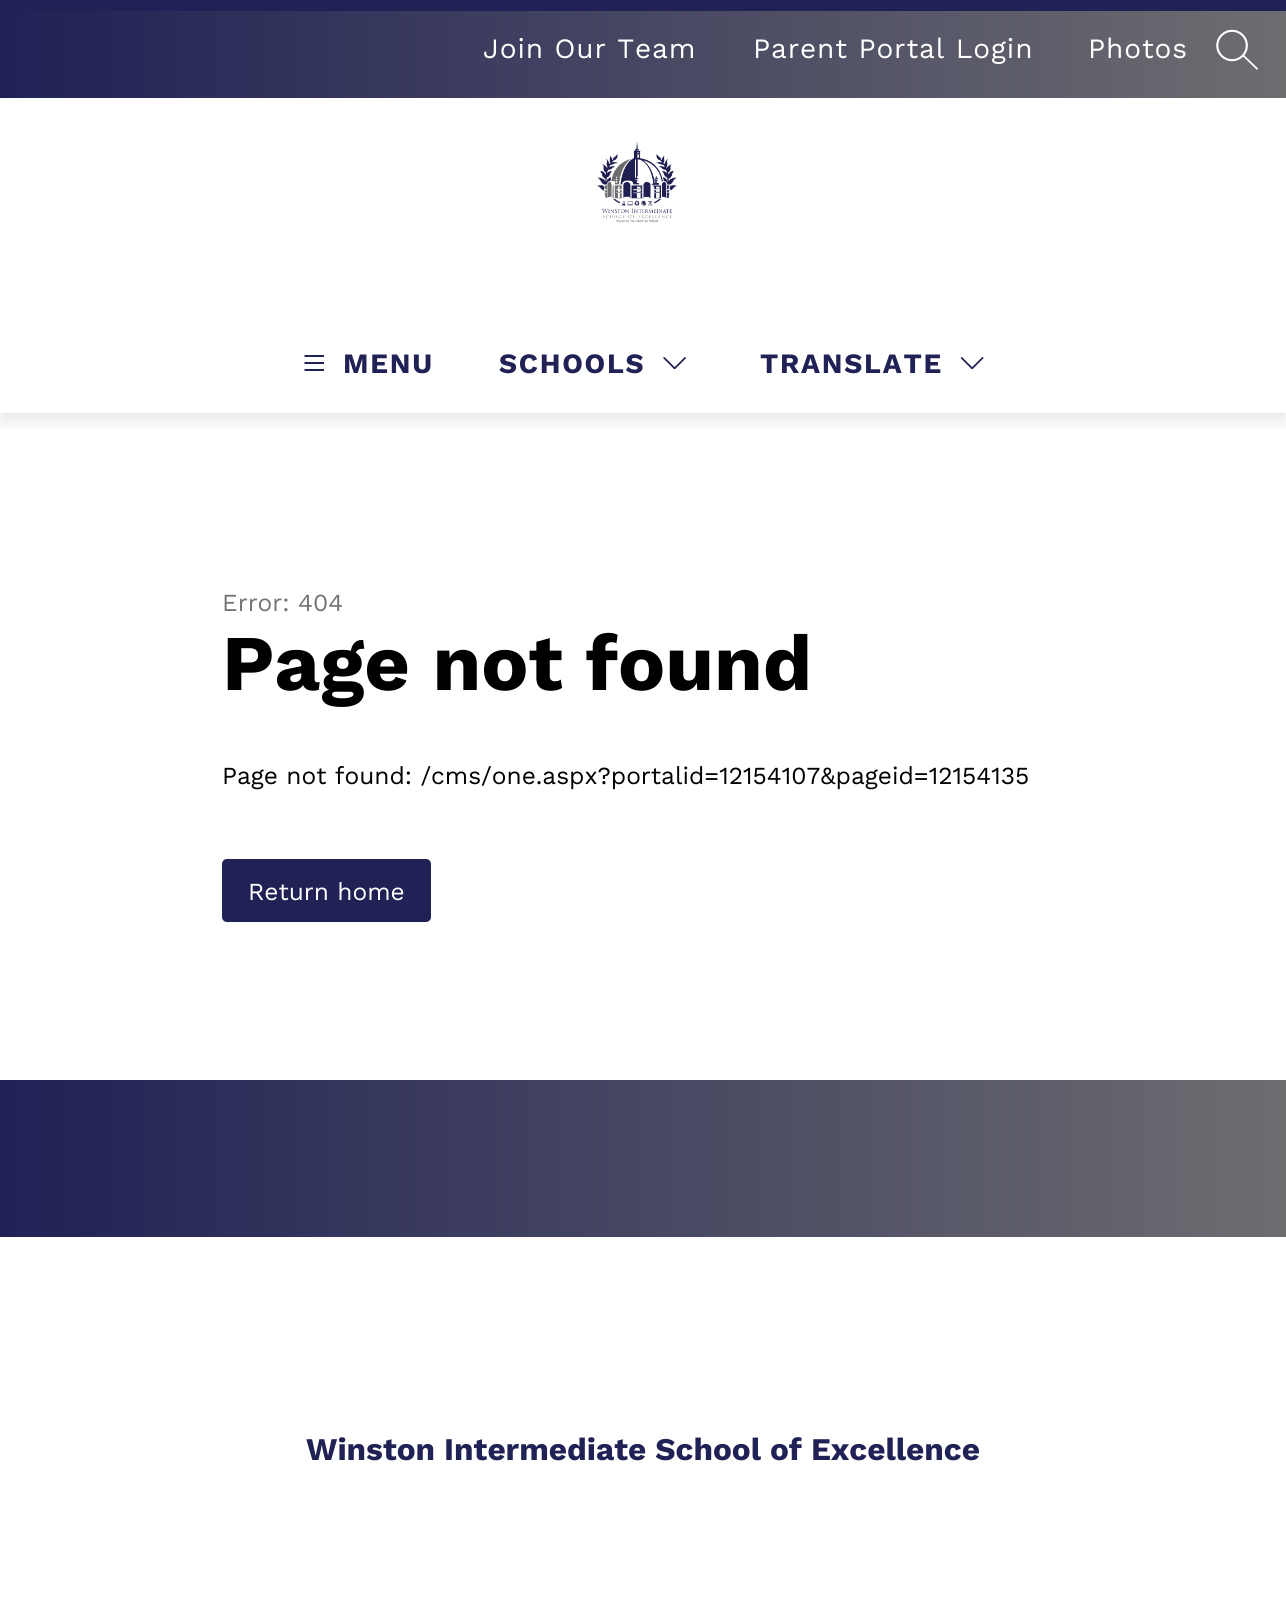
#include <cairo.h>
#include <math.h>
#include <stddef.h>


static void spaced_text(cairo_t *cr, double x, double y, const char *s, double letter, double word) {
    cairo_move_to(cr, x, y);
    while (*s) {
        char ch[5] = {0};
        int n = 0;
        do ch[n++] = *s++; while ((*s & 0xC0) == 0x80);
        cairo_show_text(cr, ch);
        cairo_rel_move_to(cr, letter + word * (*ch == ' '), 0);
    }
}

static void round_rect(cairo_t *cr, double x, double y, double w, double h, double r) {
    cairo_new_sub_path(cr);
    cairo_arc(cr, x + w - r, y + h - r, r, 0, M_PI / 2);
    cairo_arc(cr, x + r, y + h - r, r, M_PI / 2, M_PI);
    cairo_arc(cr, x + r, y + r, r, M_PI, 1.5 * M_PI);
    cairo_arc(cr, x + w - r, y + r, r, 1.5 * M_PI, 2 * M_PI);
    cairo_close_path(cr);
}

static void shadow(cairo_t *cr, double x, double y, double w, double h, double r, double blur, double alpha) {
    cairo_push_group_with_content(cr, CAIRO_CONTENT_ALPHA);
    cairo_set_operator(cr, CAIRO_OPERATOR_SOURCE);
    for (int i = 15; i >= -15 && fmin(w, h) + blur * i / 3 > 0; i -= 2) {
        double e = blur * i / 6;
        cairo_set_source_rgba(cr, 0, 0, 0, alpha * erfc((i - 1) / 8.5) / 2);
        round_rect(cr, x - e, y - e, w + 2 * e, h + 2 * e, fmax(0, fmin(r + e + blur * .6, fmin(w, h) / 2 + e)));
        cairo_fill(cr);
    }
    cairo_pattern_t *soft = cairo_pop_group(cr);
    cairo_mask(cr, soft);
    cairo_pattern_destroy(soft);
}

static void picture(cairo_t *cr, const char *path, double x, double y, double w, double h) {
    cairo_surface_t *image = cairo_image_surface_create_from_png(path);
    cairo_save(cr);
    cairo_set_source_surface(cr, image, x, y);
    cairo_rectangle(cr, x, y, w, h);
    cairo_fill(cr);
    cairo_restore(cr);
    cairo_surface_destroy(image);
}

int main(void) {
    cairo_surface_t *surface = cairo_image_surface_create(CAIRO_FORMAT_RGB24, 1286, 1602);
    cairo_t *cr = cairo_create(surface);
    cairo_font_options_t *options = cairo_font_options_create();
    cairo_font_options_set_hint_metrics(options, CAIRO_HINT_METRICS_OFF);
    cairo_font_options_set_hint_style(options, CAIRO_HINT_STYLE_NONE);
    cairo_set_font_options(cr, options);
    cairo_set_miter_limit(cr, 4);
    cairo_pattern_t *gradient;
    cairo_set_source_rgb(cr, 1, 1, 1);
    cairo_paint(cr);
    cairo_save(cr);
    cairo_rectangle(cr, 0, 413, 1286, 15);
    cairo_clip(cr);
    cairo_set_source_rgb(cr, 0, 0, 0);
    shadow(cr, 0, 7, 1286, 413, 0, 9, 0.1);
    cairo_restore(cr);
    gradient = cairo_pattern_create_linear(0, 49, 1286, 49);
    cairo_pattern_add_color_stop_rgba(gradient, 0, 0.125, 0.129, 0.333, 1);
    cairo_pattern_add_color_stop_rgba(gradient, 1, 0.427, 0.427, 0.439, 1);
    cairo_set_source(cr, gradient);
    cairo_pattern_destroy(gradient);
    cairo_rectangle(cr, 0, 11, 1286, 87);
    cairo_fill(cr);
    cairo_select_font_face(cr, "Work Sans", CAIRO_FONT_SLANT_NORMAL, CAIRO_FONT_WEIGHT_NORMAL);
    cairo_set_font_size(cr, 28);
    cairo_set_source_rgb(cr, 1, 1, 1);
    spaced_text(cr, 483, 58, "Join Our Team", 0.9, 0);
    spaced_text(cr, 753, 58, "Parent Portal Login", 0.9, 0);
    spaced_text(cr, 1088, 58, "Photos", 0.9, 0);
    picture(cr, "img1.png", 1216, 29, 42, 41);
    cairo_set_source_rgb(cr, 0.125, 0.129, 0.333);
    cairo_rectangle(cr, 0, 0, 1286, 11);
    cairo_fill(cr);
    picture(cr, "img2.png", 597, 141, 81, 82);
    cairo_set_fill_rule(cr, CAIRO_FILL_RULE_EVEN_ODD);
    cairo_new_path(cr);
    cairo_move_to(cr, 304.5, 355);
    cairo_line_to(cr, 324, 355);
    cairo_line_to(cr, 324, 357);
    cairo_line_to(cr, 304.5, 357);
    cairo_close_path(cr);
    cairo_move_to(cr, 304.5, 362);
    cairo_line_to(cr, 324, 362);
    cairo_line_to(cr, 324, 364);
    cairo_line_to(cr, 304.5, 364);
    cairo_close_path(cr);
    cairo_move_to(cr, 324, 369);
    cairo_line_to(cr, 304.5, 369);
    cairo_line_to(cr, 304.5, 371);
    cairo_line_to(cr, 324, 371);
    cairo_close_path(cr);
    cairo_fill(cr);
    cairo_select_font_face(cr, "Work Sans", CAIRO_FONT_SLANT_NORMAL, CAIRO_FONT_WEIGHT_BOLD);
    spaced_text(cr, 343, 373, "MENU", 1.75, 0);
    spaced_text(cr, 499, 373, "SCHOOLS", 1.75, 0);
    picture(cr, "img3.png", 663, 357, 23, 13);
    spaced_text(cr, 760, 373, "TRANSLATE", 1.75, 0);
    picture(cr, "img4.png", 960, 357, 24, 13);
    cairo_select_font_face(cr, "Work Sans", CAIRO_FONT_SLANT_NORMAL, CAIRO_FONT_WEIGHT_NORMAL);
    cairo_set_font_size(cr, 24.5);
    cairo_set_source_rgb(cr, 0.455, 0.455, 0.455);
    cairo_move_to(cr, 222, 611);
    cairo_show_text(cr, "Error: 404");
    cairo_select_font_face(cr, "Work Sans", CAIRO_FONT_SLANT_NORMAL, CAIRO_FONT_WEIGHT_BOLD);
    cairo_set_font_size(cr, 78.75);
    cairo_set_source_rgb(cr, 0, 0, 0);
    cairo_move_to(cr, 222, 690);
    cairo_show_text(cr, "Page not found");
    cairo_select_font_face(cr, "Work Sans", CAIRO_FONT_SLANT_NORMAL, CAIRO_FONT_WEIGHT_NORMAL);
    cairo_set_font_size(cr, 24.5);
    cairo_move_to(cr, 222, 784);
    cairo_show_text(cr, "Page not found: /cms/one.aspx?portalid=12154107&pageid=12154135");
    cairo_set_source_rgb(cr, 0.125, 0.129, 0.333);
    round_rect(cr, 222, 859, 209, 63, 5);
    cairo_fill(cr);
    cairo_set_source_rgb(cr, 1, 1, 1);
    cairo_move_to(cr, 248, 900);
    cairo_show_text(cr, "Return home");
    gradient = cairo_pattern_create_linear(0, 1159, 1286, 1159);
    cairo_pattern_add_color_stop_rgba(gradient, 0, 0.125, 0.129, 0.333, 1);
    cairo_pattern_add_color_stop_rgba(gradient, 1, 0.427, 0.427, 0.439, 1);
    cairo_set_source(cr, gradient);
    cairo_pattern_destroy(gradient);
    cairo_rectangle(cr, 0, 1080, 1286, 157);
    cairo_fill(cr);
    cairo_select_font_face(cr, "Work Sans", CAIRO_FONT_SLANT_NORMAL, CAIRO_FONT_WEIGHT_BOLD);
    cairo_set_font_size(cr, 31.5);
    cairo_set_source_rgb(cr, 0.125, 0.129, 0.333);
    cairo_move_to(cr, 306, 1460);
    cairo_show_text(cr, "Winston Intermediate School of Excellence");
    cairo_surface_write_to_png(surface, "page.png");
    cairo_font_options_destroy(options);
    cairo_destroy(cr);
    cairo_surface_destroy(surface);
    return 0;
}
